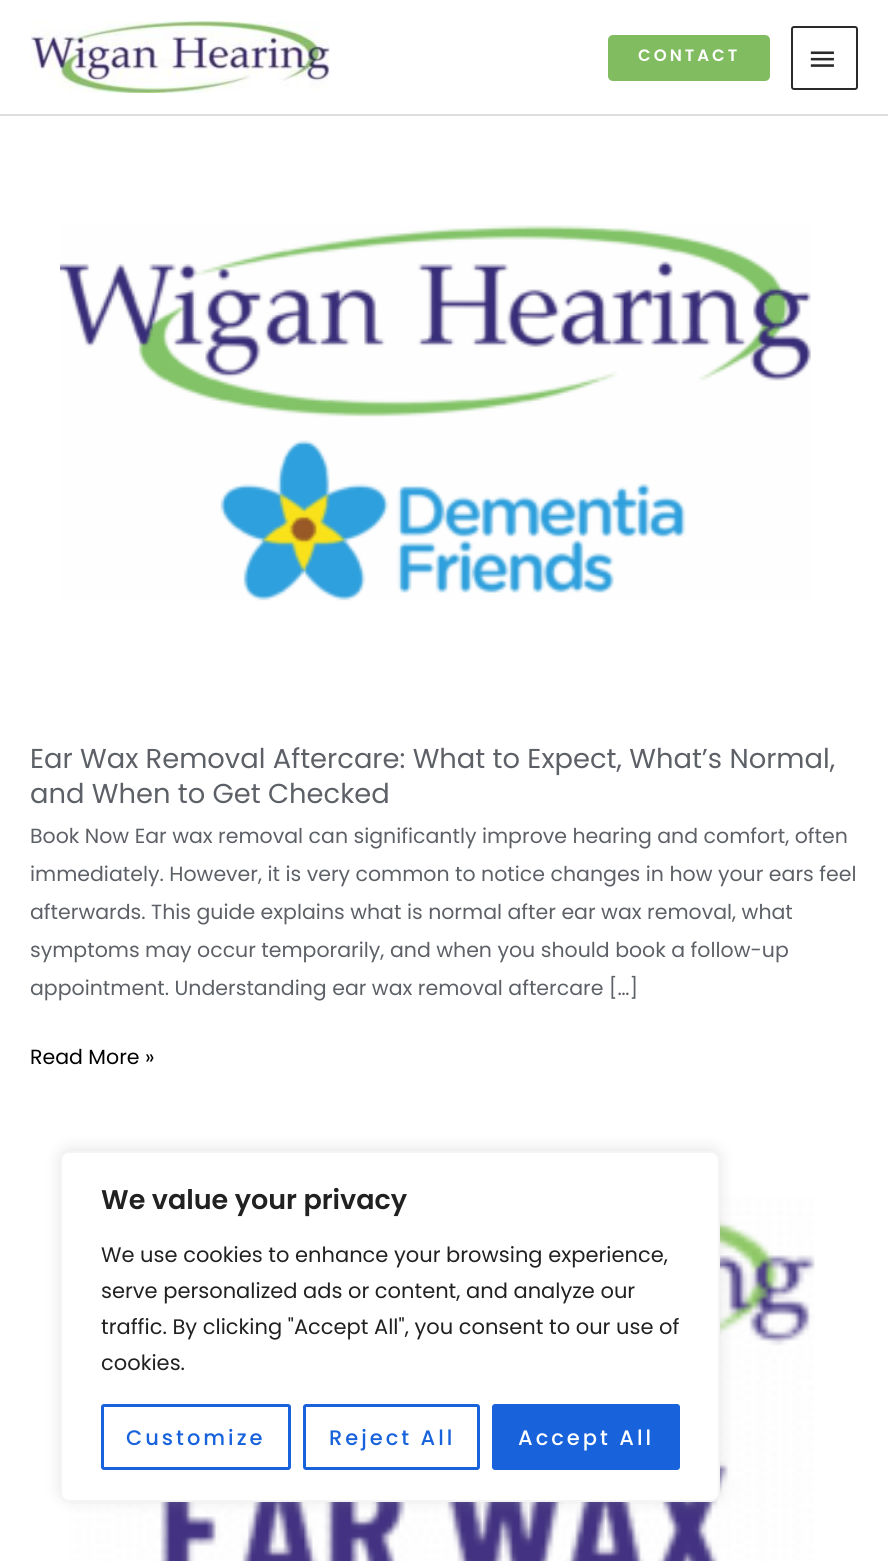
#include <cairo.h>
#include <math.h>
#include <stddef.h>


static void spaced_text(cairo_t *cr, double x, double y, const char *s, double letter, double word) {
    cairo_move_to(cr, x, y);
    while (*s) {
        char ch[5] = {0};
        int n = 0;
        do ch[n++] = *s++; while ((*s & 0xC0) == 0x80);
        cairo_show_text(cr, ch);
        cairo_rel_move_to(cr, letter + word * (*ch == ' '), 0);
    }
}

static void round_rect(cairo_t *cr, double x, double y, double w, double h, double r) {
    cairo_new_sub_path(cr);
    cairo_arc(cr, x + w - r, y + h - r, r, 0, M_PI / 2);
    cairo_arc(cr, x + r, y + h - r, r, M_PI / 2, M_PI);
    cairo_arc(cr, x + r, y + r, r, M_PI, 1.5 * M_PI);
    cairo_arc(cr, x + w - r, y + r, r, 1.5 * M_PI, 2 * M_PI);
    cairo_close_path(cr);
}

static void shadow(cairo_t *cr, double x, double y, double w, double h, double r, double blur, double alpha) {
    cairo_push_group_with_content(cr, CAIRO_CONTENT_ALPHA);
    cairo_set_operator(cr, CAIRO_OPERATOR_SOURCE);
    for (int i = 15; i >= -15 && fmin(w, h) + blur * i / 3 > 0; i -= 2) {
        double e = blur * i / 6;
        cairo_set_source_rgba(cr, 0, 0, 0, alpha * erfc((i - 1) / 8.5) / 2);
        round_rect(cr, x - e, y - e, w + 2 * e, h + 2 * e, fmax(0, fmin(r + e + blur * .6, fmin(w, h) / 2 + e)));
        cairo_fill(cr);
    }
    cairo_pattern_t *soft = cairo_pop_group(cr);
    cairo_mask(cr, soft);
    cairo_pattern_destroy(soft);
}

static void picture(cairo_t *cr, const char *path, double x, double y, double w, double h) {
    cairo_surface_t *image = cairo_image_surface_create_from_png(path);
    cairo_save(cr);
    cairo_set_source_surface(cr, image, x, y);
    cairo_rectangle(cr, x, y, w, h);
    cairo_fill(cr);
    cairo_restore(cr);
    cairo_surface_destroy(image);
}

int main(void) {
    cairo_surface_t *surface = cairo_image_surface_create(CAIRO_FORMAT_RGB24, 888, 1561);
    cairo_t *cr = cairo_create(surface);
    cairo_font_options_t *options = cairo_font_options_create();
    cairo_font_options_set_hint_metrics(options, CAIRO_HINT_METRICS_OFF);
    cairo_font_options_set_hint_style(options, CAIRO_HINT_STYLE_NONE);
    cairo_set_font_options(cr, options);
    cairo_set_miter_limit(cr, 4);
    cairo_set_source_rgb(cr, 1, 1, 1);
    cairo_paint(cr);
    cairo_set_source_rgb(cr, 0.867, 0.867, 0.867);
    cairo_rectangle(cr, 0, 114, 888, 2);
    cairo_fill(cr);
    picture(cr, "img1.png", 30, 21, 300, 72);
    cairo_set_source_rgb(cr, 0.506, 0.737, 0.376);
    round_rect(cr, 608, 35, 162, 46, 5);
    cairo_fill(cr);
    cairo_select_font_face(cr, "Poppins SemiBold", CAIRO_FONT_SLANT_NORMAL, CAIRO_FONT_WEIGHT_NORMAL);
    cairo_set_font_size(cr, 16.5);
    cairo_set_source_rgb(cr, 1, 1, 1);
    spaced_text(cr, 638, 61, "CONTACT", 3, 0);
    round_rect(cr, 792, 27, 65, 62, 2);
    cairo_set_source_rgb(cr, 0.165, 0.165, 0.165);
    cairo_stroke(cr);
    picture(cr, "img2.png", 810, 51, 24, 16);
    picture(cr, "img3.png", 60, 225, 751, 376);
    cairo_select_font_face(cr, "Poppins", CAIRO_FONT_SLANT_NORMAL, CAIRO_FONT_WEIGHT_NORMAL);
    cairo_set_font_size(cr, 27.35);
    cairo_set_source_rgb(cr, 0.365, 0.38, 0.404);
    cairo_move_to(cr, 30, 768);
    cairo_show_text(cr, "Ear Wax Removal Aftercare: What to Expect, What’s Normal,");
    cairo_move_to(cr, 30, 803);
    cairo_show_text(cr, "and When to Get Checked");
    cairo_set_font_size(cr, 20.5);
    cairo_move_to(cr, 30, 843);
    cairo_show_text(cr, "Book Now Ear wax removal can significantly improve hearing and comfort, often");
    cairo_move_to(cr, 30, 881);
    cairo_show_text(cr, "immediately. However, it is very common to notice changes in how your ears feel");
    cairo_move_to(cr, 30, 919);
    cairo_show_text(cr, "afterwards. This guide explains what is normal after ear wax removal, what");
    cairo_move_to(cr, 30, 957);
    cairo_show_text(cr, "symptoms may occur temporarily, and when you should book a follow-up");
    cairo_move_to(cr, 30, 995);
    cairo_show_text(cr, "appointment. Understanding ear wax removal aftercare […]");
    cairo_set_source_rgb(cr, 0, 0, 0);
    cairo_move_to(cr, 30, 1064);
    cairo_show_text(cr, "Read More »");
    picture(cr, "img4.png", 69, 1195, 746, 366);
    cairo_set_source_rgb(cr, 0.675, 0.671, 0.671);
    shadow(cr, 60, 1149, 660, 351, 9, 7.5, 0.3);
    cairo_set_source_rgb(cr, 1, 1, 1);
    round_rect(cr, 61, 1152, 658, 349, 8);
    cairo_fill_preserve(cr);
    cairo_set_source_rgb(cr, 0.957, 0.957, 0.957);
    cairo_stroke(cr);
    cairo_select_font_face(cr, "Poppins SemiBold", CAIRO_FONT_SLANT_NORMAL, CAIRO_FONT_WEIGHT_NORMAL);
    cairo_set_font_size(cr, 27);
    cairo_set_source_rgb(cr, 0.129, 0.129, 0.129);
    cairo_move_to(cr, 101, 1209);
    cairo_show_text(cr, "We value your privacy");
    cairo_select_font_face(cr, "Poppins", CAIRO_FONT_SLANT_NORMAL, CAIRO_FONT_WEIGHT_NORMAL);
    cairo_set_font_size(cr, 21);
    cairo_move_to(cr, 101, 1262);
    cairo_show_text(cr, "We use cookies to enhance your browsing experience,");
    cairo_move_to(cr, 101, 1298);
    cairo_show_text(cr, "serve personalized ads or content, and analyze our");
    cairo_move_to(cr, 101, 1334);
    cairo_show_text(cr, "traffic. By clicking \"Accept All\", you consent to our use of");
    cairo_move_to(cr, 101, 1370);
    cairo_show_text(cr, "cookies.");
    round_rect(cr, 102.5, 1405.5, 187, 63, 1.5);
    cairo_set_source_rgb(cr, 0.094, 0.388, 0.863);
    cairo_set_line_width(cr, 3);
    cairo_stroke(cr);
    cairo_select_font_face(cr, "Poppins Medium", CAIRO_FONT_SLANT_NORMAL, CAIRO_FONT_WEIGHT_NORMAL);
    spaced_text(cr, 126, 1445, "Customize", 3, 0);
    round_rect(cr, 304.5, 1405.5, 174, 63, 1.5);
    cairo_stroke(cr);
    spaced_text(cr, 329, 1445, "Reject All", 3, 0);
    round_rect(cr, 493.5, 1405.5, 185, 63, 1.5);
    cairo_fill_preserve(cr);
    cairo_stroke(cr);
    cairo_set_source_rgb(cr, 1, 1, 1);
    spaced_text(cr, 518, 1445, "Accept All", 3, 0);
    cairo_surface_write_to_png(surface, "page.png");
    cairo_font_options_destroy(options);
    cairo_destroy(cr);
    cairo_surface_destroy(surface);
    return 0;
}
